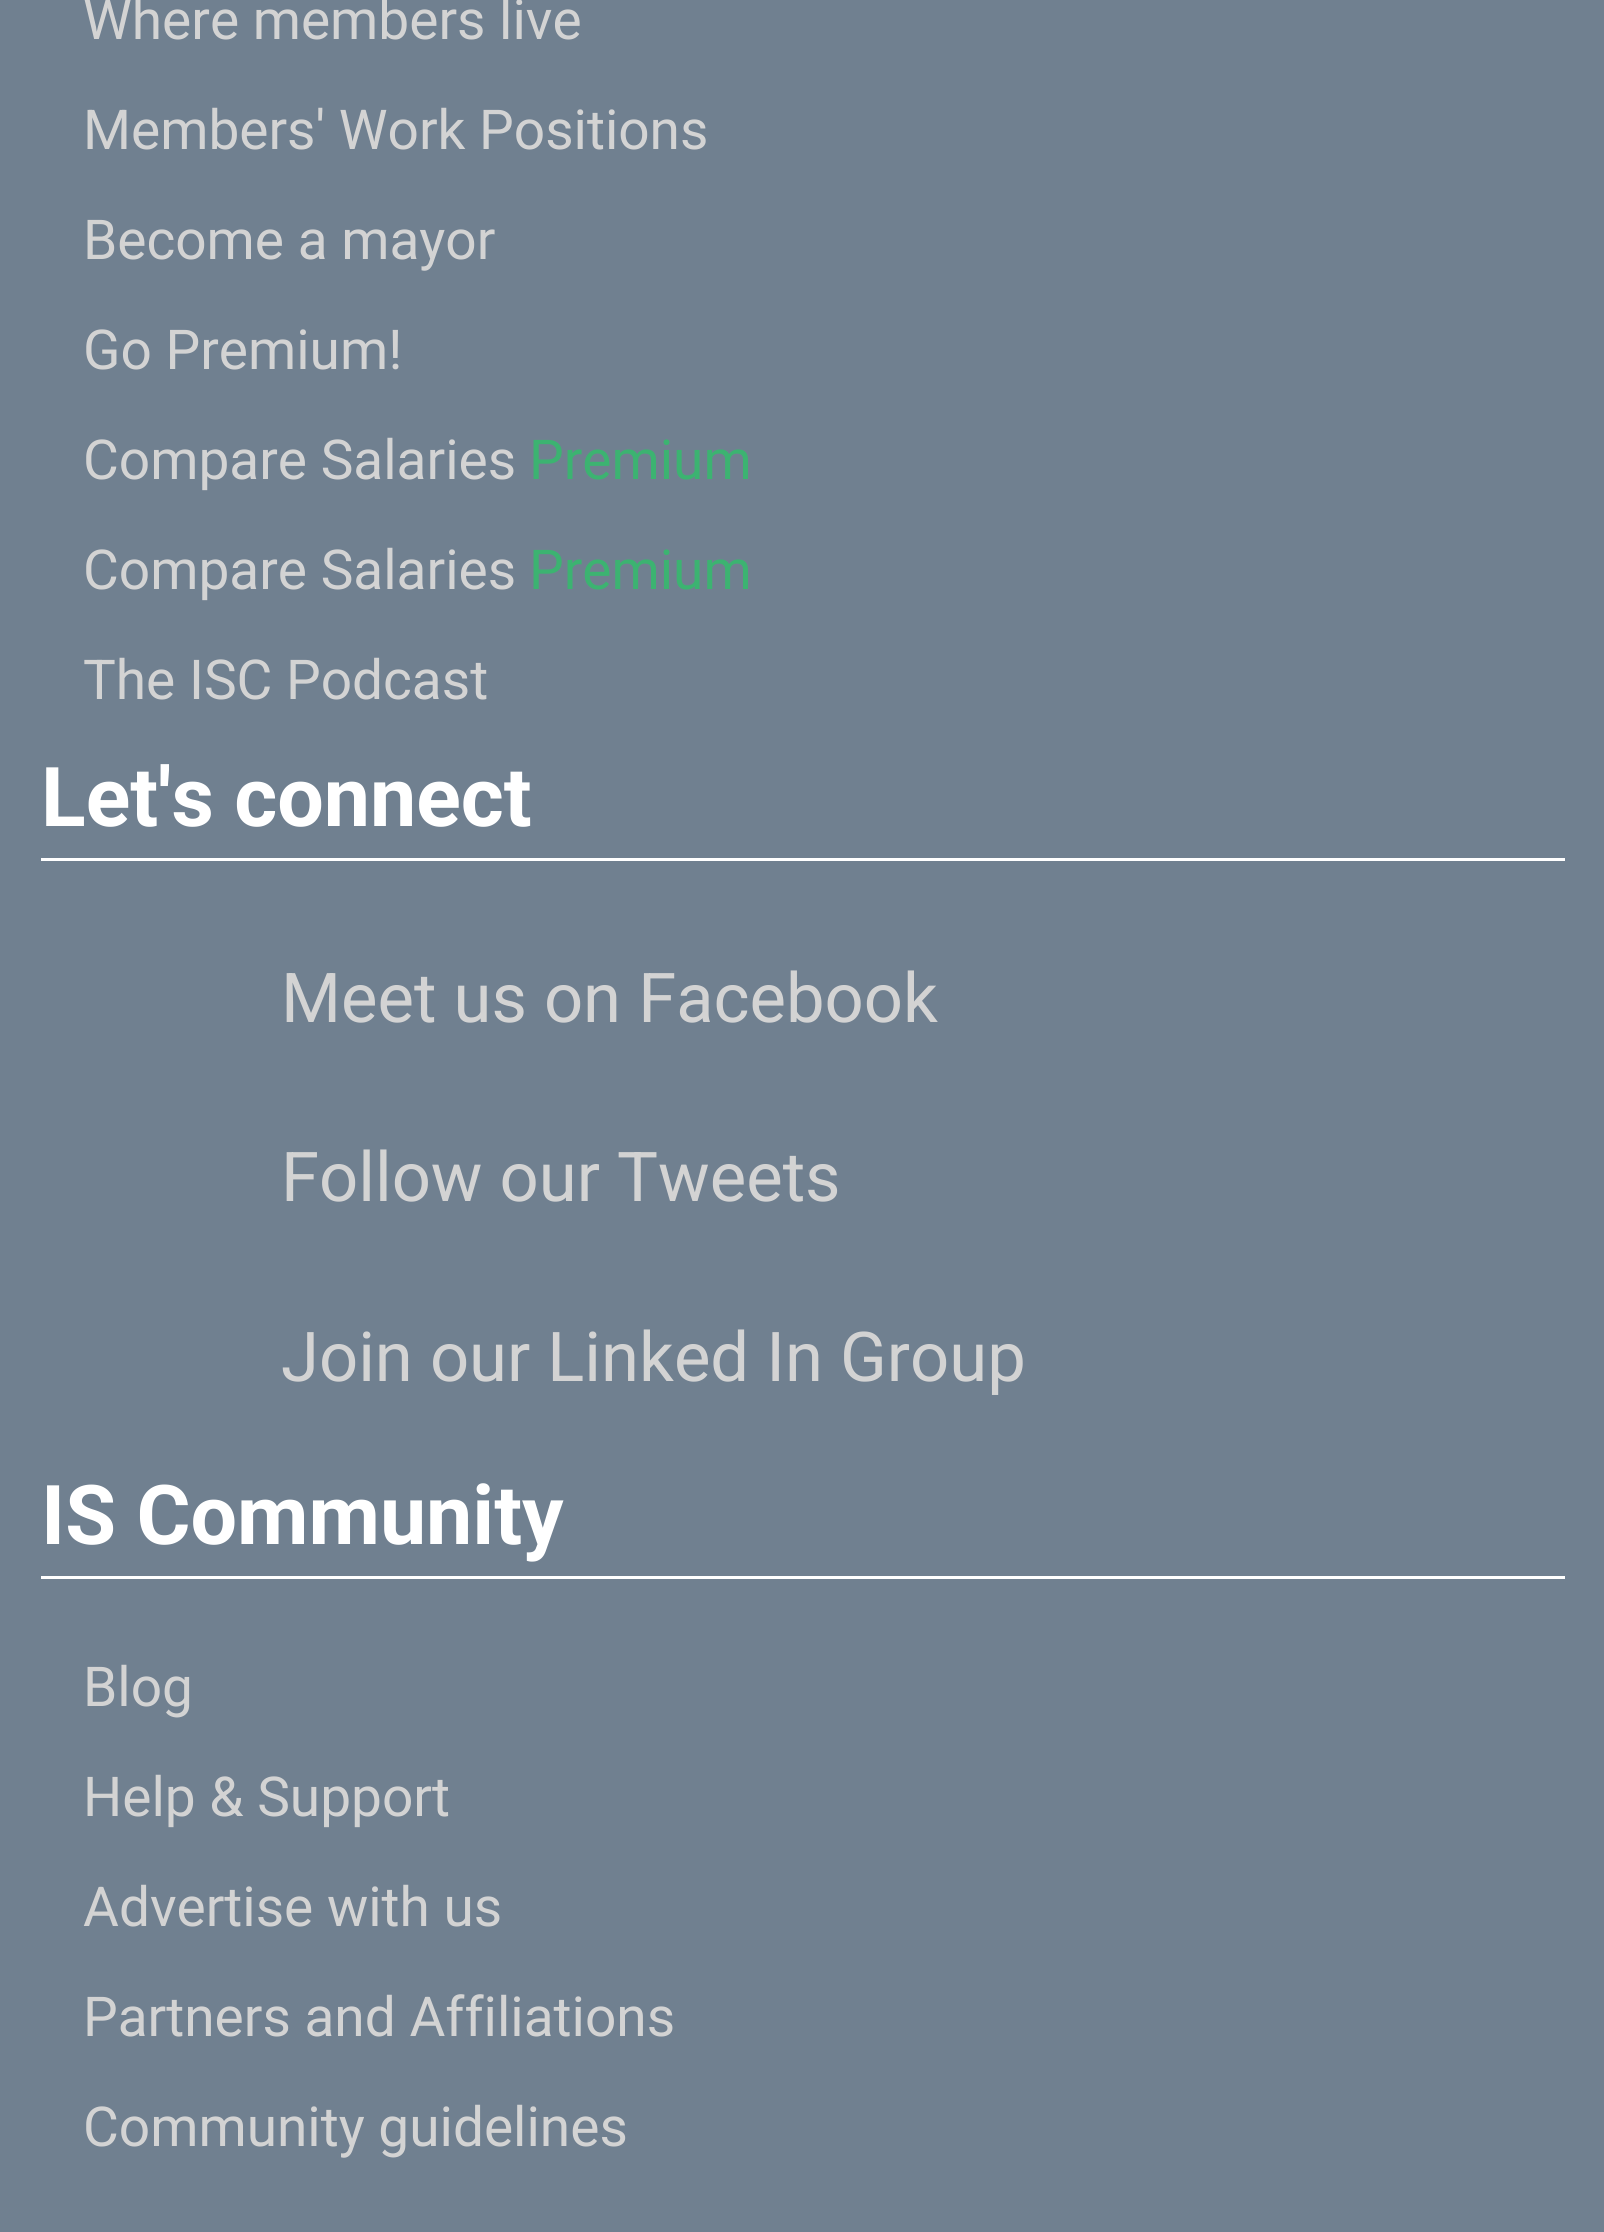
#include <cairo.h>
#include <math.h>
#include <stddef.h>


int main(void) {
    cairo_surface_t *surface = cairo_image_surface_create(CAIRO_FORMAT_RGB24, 1604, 2232);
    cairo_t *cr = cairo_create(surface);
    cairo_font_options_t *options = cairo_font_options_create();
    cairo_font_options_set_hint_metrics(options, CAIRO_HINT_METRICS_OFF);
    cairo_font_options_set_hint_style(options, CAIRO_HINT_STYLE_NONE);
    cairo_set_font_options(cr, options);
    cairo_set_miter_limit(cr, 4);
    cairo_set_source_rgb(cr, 0.439, 0.502, 0.565);
    cairo_paint(cr);
    cairo_select_font_face(cr, "Roboto", CAIRO_FONT_SLANT_NORMAL, CAIRO_FONT_WEIGHT_NORMAL);
    cairo_set_font_size(cr, 55);
    cairo_set_source_rgb(cr, 0.827, 0.827, 0.827);
    cairo_move_to(cr, 83, 39);
    cairo_show_text(cr, "Where members live");
    cairo_move_to(cr, 83, 149);
    cairo_show_text(cr, "Members' Work Positions");
    cairo_move_to(cr, 83, 259);
    cairo_show_text(cr, "Become a mayor");
    cairo_move_to(cr, 83, 369);
    cairo_show_text(cr, "Go Premium!");
    cairo_move_to(cr, 83, 479);
    cairo_show_text(cr, "Compare Salaries");
    cairo_set_source_rgb(cr, 0.235, 0.702, 0.443);
    cairo_move_to(cr, 529, 479);
    cairo_show_text(cr, "Premium");
    cairo_set_source_rgb(cr, 0.827, 0.827, 0.827);
    cairo_move_to(cr, 83, 589);
    cairo_show_text(cr, "Compare Salaries");
    cairo_set_source_rgb(cr, 0.235, 0.702, 0.443);
    cairo_move_to(cr, 529, 589);
    cairo_show_text(cr, "Premium");
    cairo_set_source_rgb(cr, 0.827, 0.827, 0.827);
    cairo_move_to(cr, 83, 699);
    cairo_show_text(cr, "The ISC Podcast");
    cairo_set_source_rgb(cr, 1, 1, 1);
    cairo_rectangle(cr, 41, 858, 1524, 3);
    cairo_fill(cr);
    cairo_select_font_face(cr, "Roboto", CAIRO_FONT_SLANT_NORMAL, CAIRO_FONT_WEIGHT_BOLD);
    cairo_set_font_size(cr, 82.5);
    cairo_move_to(cr, 41, 826);
    cairo_show_text(cr, "Let's connect");
    cairo_select_font_face(cr, "Roboto", CAIRO_FONT_SLANT_NORMAL, CAIRO_FONT_WEIGHT_NORMAL);
    cairo_set_font_size(cr, 68.75);
    cairo_set_source_rgb(cr, 0.827, 0.827, 0.827);
    cairo_move_to(cr, 281, 1022);
    cairo_show_text(cr, "Meet us on Facebook");
    cairo_move_to(cr, 281, 1201);
    cairo_show_text(cr, "Follow our Tweets");
    cairo_move_to(cr, 281, 1381);
    cairo_show_text(cr, "Join our Linked In Group");
    cairo_set_source_rgb(cr, 1, 1, 1);
    cairo_rectangle(cr, 41, 1576, 1524, 3);
    cairo_fill(cr);
    cairo_select_font_face(cr, "Roboto", CAIRO_FONT_SLANT_NORMAL, CAIRO_FONT_WEIGHT_BOLD);
    cairo_set_font_size(cr, 82.5);
    cairo_move_to(cr, 41, 1544);
    cairo_show_text(cr, "IS Community");
    cairo_select_font_face(cr, "Roboto", CAIRO_FONT_SLANT_NORMAL, CAIRO_FONT_WEIGHT_NORMAL);
    cairo_set_font_size(cr, 55);
    cairo_set_source_rgb(cr, 0.827, 0.827, 0.827);
    cairo_move_to(cr, 83, 1706);
    cairo_show_text(cr, "Blog");
    cairo_move_to(cr, 83, 1816);
    cairo_show_text(cr, "Help & Support");
    cairo_move_to(cr, 83, 1926);
    cairo_show_text(cr, "Advertise with us");
    cairo_move_to(cr, 83, 2036);
    cairo_show_text(cr, "Partners and Affiliations");
    cairo_move_to(cr, 83, 2146);
    cairo_show_text(cr, "Community guidelines");
    cairo_surface_write_to_png(surface, "page.png");
    cairo_font_options_destroy(options);
    cairo_destroy(cr);
    cairo_surface_destroy(surface);
    return 0;
}
